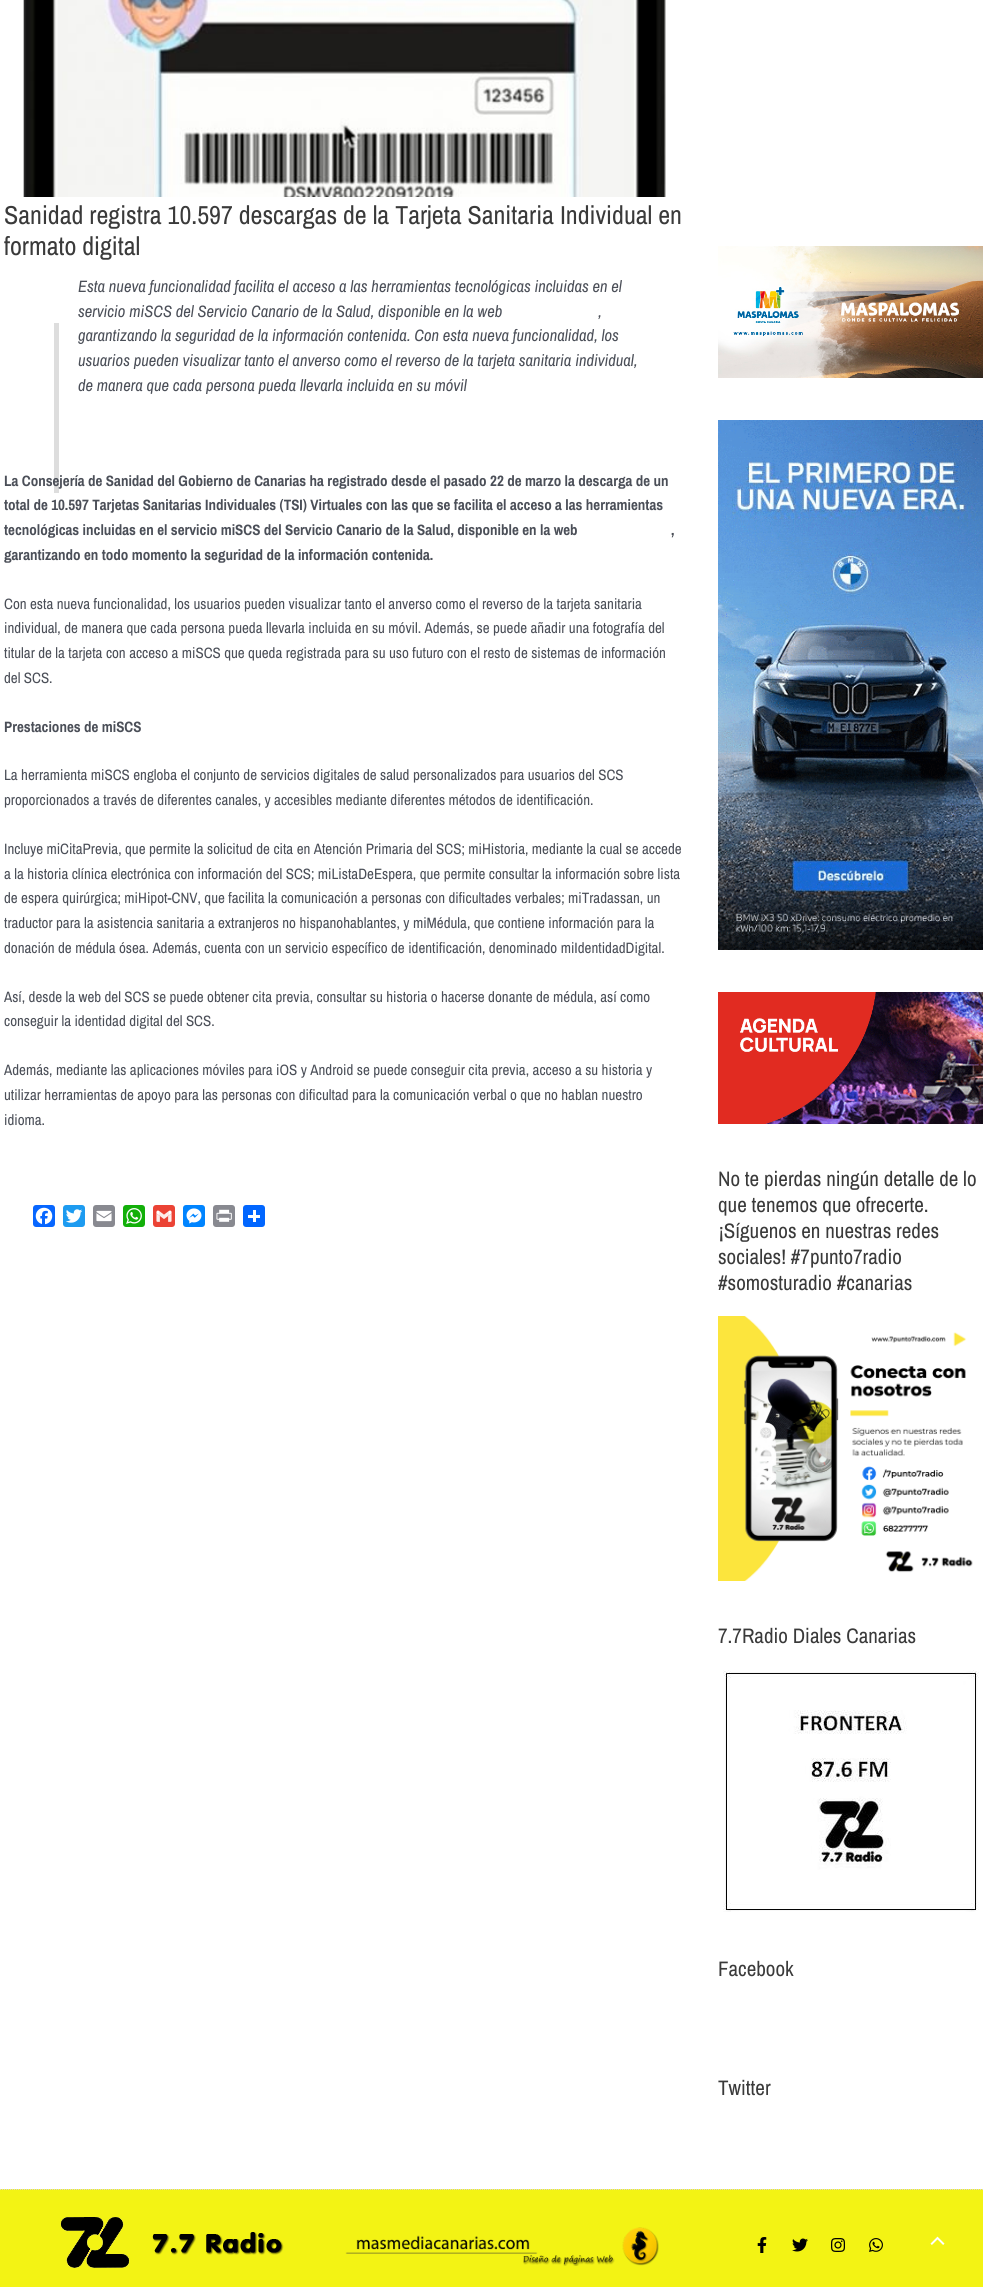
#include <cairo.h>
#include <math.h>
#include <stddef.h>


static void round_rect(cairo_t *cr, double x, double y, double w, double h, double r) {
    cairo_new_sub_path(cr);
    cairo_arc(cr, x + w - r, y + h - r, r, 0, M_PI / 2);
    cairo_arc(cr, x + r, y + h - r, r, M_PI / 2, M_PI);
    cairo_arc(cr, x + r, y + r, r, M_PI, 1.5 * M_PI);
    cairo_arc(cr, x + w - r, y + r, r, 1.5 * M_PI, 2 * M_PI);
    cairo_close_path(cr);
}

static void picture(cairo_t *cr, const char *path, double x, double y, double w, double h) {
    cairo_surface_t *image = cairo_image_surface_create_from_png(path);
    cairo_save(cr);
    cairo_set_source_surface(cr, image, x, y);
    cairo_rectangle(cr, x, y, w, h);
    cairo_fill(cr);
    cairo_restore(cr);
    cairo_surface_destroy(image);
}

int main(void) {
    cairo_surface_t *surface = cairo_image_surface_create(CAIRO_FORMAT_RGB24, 983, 2287);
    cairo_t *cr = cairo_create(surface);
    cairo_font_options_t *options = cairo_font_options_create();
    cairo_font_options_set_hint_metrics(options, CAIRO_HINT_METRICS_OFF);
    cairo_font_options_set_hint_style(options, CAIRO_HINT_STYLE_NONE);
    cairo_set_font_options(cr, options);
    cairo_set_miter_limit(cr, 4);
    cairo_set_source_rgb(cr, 1, 1, 1);
    cairo_paint(cr);
    picture(cr, "img1.png", 23, 0, 643, 197);
    cairo_select_font_face(cr, "Archivo Narrow", CAIRO_FONT_SLANT_NORMAL, CAIRO_FONT_WEIGHT_NORMAL);
    cairo_set_font_size(cr, 26);
    cairo_set_source_rgb(cr, 0.227, 0.227, 0.227);
    cairo_move_to(cr, 4, 224);
    cairo_show_text(cr, "Sanidad registra 10.597 descargas de la Tarjeta Sanitaria Individual en");
    cairo_move_to(cr, 4, 255);
    cairo_show_text(cr, "formato digital");
    cairo_set_source_rgb(cr, 0.867, 0.867, 0.867);
    cairo_rectangle(cr, 54, 323, 5, 170);
    cairo_fill(cr);
    cairo_select_font_face(cr, "Archivo Narrow", CAIRO_FONT_SLANT_ITALIC, CAIRO_FONT_WEIGHT_NORMAL);
    cairo_set_font_size(cr, 16.5);
    cairo_set_source_rgb(cr, 0.294, 0.31, 0.345);
    cairo_move_to(cr, 78, 292);
    cairo_show_text(cr, "Esta nueva funcionalidad facilita el acceso a las herramientas tecnológicas incluidas en el");
    cairo_move_to(cr, 78, 317);
    cairo_show_text(cr, "servicio miSCS del Servicio Canario de la Salud, disponible en la web");
    cairo_move_to(cr, 598, 317);
    cairo_show_text(cr, ",");
    cairo_move_to(cr, 78, 341);
    cairo_show_text(cr, "garantizando la seguridad de la información contenida. Con esta nueva funcionalidad, los");
    cairo_move_to(cr, 78, 366);
    cairo_show_text(cr, "usuarios pueden visualizar tanto el anverso como el reverso de la tarjeta sanitaria individual,");
    cairo_move_to(cr, 78, 391);
    cairo_show_text(cr, "de manera que cada persona pueda llevarla incluida en su móvil");
    cairo_select_font_face(cr, "Archivo Narrow", CAIRO_FONT_SLANT_NORMAL, CAIRO_FONT_WEIGHT_BOLD);
    cairo_set_font_size(cr, 15);
    cairo_move_to(cr, 4, 486);
    cairo_show_text(cr, "La Consejería de Sanidad del Gobierno de Canarias ha registrado desde el pasado 22 de marzo la descarga de un");
    cairo_move_to(cr, 4, 510);
    cairo_show_text(cr, "total de 10.597 Tarjetas Sanitarias Individuales (TSI) Virtuales con las que se facilita el acceso a las herramientas");
    cairo_move_to(cr, 4, 535);
    cairo_show_text(cr, "tecnológicas incluidas en el servicio miSCS del Servicio Canario de la Salud, disponible en la web");
    cairo_move_to(cr, 671, 535);
    cairo_show_text(cr, ",");
    cairo_move_to(cr, 4, 560);
    cairo_show_text(cr, "garantizando en todo momento la seguridad de la información contenida.");
    cairo_select_font_face(cr, "Archivo Narrow", CAIRO_FONT_SLANT_NORMAL, CAIRO_FONT_WEIGHT_NORMAL);
    cairo_move_to(cr, 4, 609);
    cairo_show_text(cr, "Con esta nueva funcionalidad, los usuarios pueden visualizar tanto el anverso como el reverso de la tarjeta sanitaria");
    cairo_move_to(cr, 4, 633);
    cairo_show_text(cr, "individual, de manera que cada persona pueda llevarla incluida en su móvil. Además, se puede añadir una fotografía del");
    cairo_move_to(cr, 4, 658);
    cairo_show_text(cr, "titular de la tarjeta con acceso a miSCS que queda registrada para su uso futuro con el resto de sistemas de información");
    cairo_move_to(cr, 4, 683);
    cairo_show_text(cr, "del SCS.");
    cairo_select_font_face(cr, "Archivo Narrow", CAIRO_FONT_SLANT_NORMAL, CAIRO_FONT_WEIGHT_BOLD);
    cairo_move_to(cr, 4, 732);
    cairo_show_text(cr, "Prestaciones de miSCS");
    cairo_select_font_face(cr, "Archivo Narrow", CAIRO_FONT_SLANT_NORMAL, CAIRO_FONT_WEIGHT_NORMAL);
    cairo_move_to(cr, 4, 780);
    cairo_show_text(cr, "La herramienta miSCS engloba el conjunto de servicios digitales de salud personalizados para usuarios del SCS");
    cairo_move_to(cr, 4, 805);
    cairo_show_text(cr, "proporcionados a través de diferentes canales, y accesibles mediante diferentes métodos de identificación.");
    cairo_move_to(cr, 4, 854);
    cairo_show_text(cr, "Incluye miCitaPrevia, que permite la solicitud de cita en Atención Primaria del SCS; miHistoria, mediante la cual se accede");
    cairo_move_to(cr, 4, 879);
    cairo_show_text(cr, "a la historia clínica electrónica con información del SCS; miListaDeEspera, que permite consultar la información sobre lista");
    cairo_move_to(cr, 4, 903);
    cairo_show_text(cr, "de espera quirúrgica; miHipot-CNV, que facilita la comunicación a personas con dificultades verbales; miTradassan, un");
    cairo_move_to(cr, 4, 928);
    cairo_show_text(cr, "traductor para la asistencia sanitaria a extranjeros no hispanohablantes, y miMédula, que contiene información para la");
    cairo_move_to(cr, 4, 953);
    cairo_show_text(cr, "donación de médula ósea. Además, cuenta con un servicio específico de identificación, denominado miIdentidadDigital.");
    cairo_move_to(cr, 4, 1002);
    cairo_show_text(cr, "Así, desde la web del SCS se puede obtener cita previa, consultar su historia o hacerse donante de médula, así como");
    cairo_move_to(cr, 4, 1026);
    cairo_show_text(cr, "conseguir la identidad digital del SCS.");
    cairo_move_to(cr, 4, 1075);
    cairo_show_text(cr, "Además, mediante las aplicaciones móviles para iOS y Android se puede conseguir cita previa, acceso a su historia y");
    cairo_move_to(cr, 4, 1100);
    cairo_show_text(cr, "utilizar herramientas de apoyo para las personas con dificultad para la comunicación verbal o que no hablan nuestro");
    cairo_move_to(cr, 4, 1125);
    cairo_show_text(cr, "idioma.");
    cairo_set_source_rgb(cr, 0.031, 0.4, 1);
    round_rect(cr, 33, 1205, 22, 22, 3);
    cairo_fill(cr);
    picture(cr, "img2.png", 35, 1207, 18, 18);
    cairo_set_source_rgb(cr, 0.114, 0.608, 0.941);
    round_rect(cr, 63, 1205, 22, 22, 3);
    cairo_fill(cr);
    picture(cr, "img3.png", 66, 1209, 16, 14);
    cairo_set_source_rgb(cr, 0.533, 0.537, 0.565);
    round_rect(cr, 93, 1205, 22, 22, 3);
    cairo_fill(cr);
    picture(cr, "img4.png", 96, 1210, 16, 12);
    cairo_set_source_rgb(cr, 0.071, 0.686, 0.039);
    round_rect(cr, 123, 1205, 22, 22, 3);
    cairo_fill(cr);
    picture(cr, "img5.png", 126, 1208, 16, 16);
    cairo_set_source_rgb(cr, 0.918, 0.263, 0.208);
    round_rect(cr, 153, 1205, 22, 22, 3);
    cairo_fill(cr);
    picture(cr, "img6.png", 156, 1210, 16, 12);
    cairo_set_source_rgb(cr, 0, 0.518, 1);
    round_rect(cr, 183, 1205, 22, 22, 3);
    cairo_fill(cr);
    picture(cr, "img7.png", 186, 1208, 16, 16);
    cairo_set_source_rgb(cr, 0.533, 0.537, 0.565);
    round_rect(cr, 213, 1205, 22, 22, 3);
    cairo_fill(cr);
    picture(cr, "img8.png", 216, 1209, 16, 13);
    cairo_set_source_rgb(cr, 0.004, 0.4, 1);
    round_rect(cr, 243, 1205, 22, 22, 3);
    cairo_fill(cr);
    cairo_set_source_rgb(cr, 1, 1, 1);
    cairo_rectangle(cr, 253, 1210, 3, 12);
    cairo_fill(cr);
    cairo_rectangle(cr, 248, 1215, 12, 3);
    cairo_fill(cr);
    picture(cr, "img9.png", 718, 246, 265, 132);
    picture(cr, "img10.png", 718, 420, 265, 530);
    picture(cr, "img11.png", 718, 992, 265, 132);
    cairo_set_font_size(cr, 21);
    cairo_set_source_rgb(cr, 0.227, 0.227, 0.227);
    cairo_move_to(cr, 718, 1186);
    cairo_show_text(cr, "No te pierdas ningún detalle de lo");
    cairo_move_to(cr, 718, 1212);
    cairo_show_text(cr, "que tenemos que ofrecerte.");
    cairo_move_to(cr, 718, 1238);
    cairo_show_text(cr, "¡Síguenos en nuestras redes");
    cairo_move_to(cr, 718, 1264);
    cairo_show_text(cr, "sociales! #7punto7radio");
    cairo_move_to(cr, 718, 1290);
    cairo_show_text(cr, "#somosturadio #canarias");
    picture(cr, "img12.png", 718, 1316, 255, 265);
    cairo_move_to(cr, 718, 1643);
    cairo_show_text(cr, "7.7Radio Diales Canarias");
    picture(cr, "img13.png", 723, 1670, 256, 242);
    cairo_move_to(cr, 718, 1976);
    cairo_show_text(cr, "Facebook");
    cairo_move_to(cr, 718, 2095);
    cairo_show_text(cr, "Twitter");
    cairo_set_source_rgb(cr, 0.953, 0.953, 0.082);
    cairo_rectangle(cr, 0, 2189, 983, 98);
    cairo_fill(cr);
    cairo_new_path(cr);
    cairo_move_to(cr, 0, 2189.5);
    cairo_line_to(cr, 983, 2189.5);
    cairo_set_source_rgb(cr, 0.839, 0.839, 0.839);
    cairo_set_line_width(cr, 1);
    cairo_set_dash(cr, (double[]){1, 1}, 2, 0);
    cairo_stroke(cr);
    picture(cr, "img14.png", 60, 2216, 224, 52);
    picture(cr, "img15.png", 345, 2227, 314, 39);
    picture(cr, "img16.png", 757, 2237, 10, 16);
    picture(cr, "img17.png", 792, 2238, 16, 14);
    picture(cr, "img18.png", 831, 2238, 14, 14);
    picture(cr, "img19.png", 869, 2238, 14, 14);
    picture(cr, "img20.png", 930, 2236, 15, 9);
    cairo_surface_write_to_png(surface, "page.png");
    cairo_font_options_destroy(options);
    cairo_destroy(cr);
    cairo_surface_destroy(surface);
    return 0;
}
